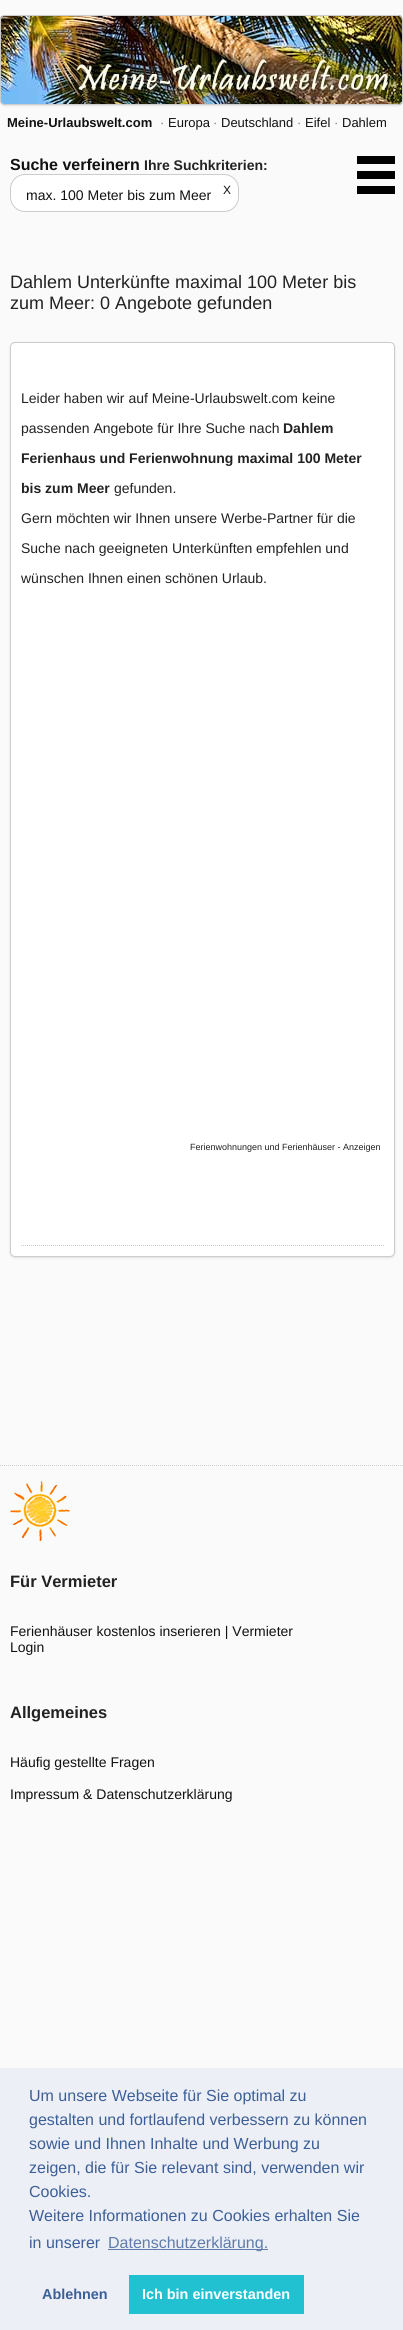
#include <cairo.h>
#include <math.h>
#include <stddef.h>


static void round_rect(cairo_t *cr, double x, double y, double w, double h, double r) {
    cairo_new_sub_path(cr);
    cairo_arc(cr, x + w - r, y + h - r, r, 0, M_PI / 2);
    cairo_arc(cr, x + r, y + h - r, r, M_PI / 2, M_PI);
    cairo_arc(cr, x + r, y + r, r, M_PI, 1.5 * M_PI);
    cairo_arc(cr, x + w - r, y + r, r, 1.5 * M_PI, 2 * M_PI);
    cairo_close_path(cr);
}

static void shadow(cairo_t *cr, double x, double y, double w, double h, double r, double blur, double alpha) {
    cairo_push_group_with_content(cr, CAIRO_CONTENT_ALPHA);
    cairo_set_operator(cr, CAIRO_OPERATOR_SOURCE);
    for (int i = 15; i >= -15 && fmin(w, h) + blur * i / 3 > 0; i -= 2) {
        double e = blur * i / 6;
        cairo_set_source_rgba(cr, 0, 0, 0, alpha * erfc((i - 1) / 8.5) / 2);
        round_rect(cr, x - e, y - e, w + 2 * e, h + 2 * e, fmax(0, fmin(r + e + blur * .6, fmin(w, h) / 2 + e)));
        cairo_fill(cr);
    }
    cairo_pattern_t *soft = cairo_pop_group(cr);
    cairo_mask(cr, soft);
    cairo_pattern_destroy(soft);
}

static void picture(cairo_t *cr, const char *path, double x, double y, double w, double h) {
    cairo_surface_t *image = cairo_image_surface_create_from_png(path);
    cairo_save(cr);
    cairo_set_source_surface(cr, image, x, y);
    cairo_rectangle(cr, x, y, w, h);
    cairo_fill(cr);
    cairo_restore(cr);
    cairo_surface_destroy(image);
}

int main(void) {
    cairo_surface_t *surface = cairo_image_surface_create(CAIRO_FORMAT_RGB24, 403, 2330);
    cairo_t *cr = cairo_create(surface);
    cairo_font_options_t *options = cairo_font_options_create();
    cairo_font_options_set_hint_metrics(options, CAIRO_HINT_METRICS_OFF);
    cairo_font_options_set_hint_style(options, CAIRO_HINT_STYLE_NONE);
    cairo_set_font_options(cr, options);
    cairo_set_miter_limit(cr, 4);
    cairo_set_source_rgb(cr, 0.98, 0.98, 0.98);
    cairo_paint(cr);
    cairo_set_source_rgb(cr, 0, 0, 0);
    shadow(cr, 0, 16, 403, 90, 5, 1, 0.1);
    picture(cr, "img1.png", 0, 15, 403, 90);
    round_rect(cr, 0.5, 15.5, 402, 89, 4.5);
    cairo_set_source_rgb(cr, 0.8, 0.8, 0.8);
    cairo_set_line_width(cr, 1);
    cairo_stroke(cr);
    cairo_select_font_face(cr, "Liberation Sans", CAIRO_FONT_SLANT_NORMAL, CAIRO_FONT_WEIGHT_BOLD);
    cairo_set_font_size(cr, 13);
    cairo_set_source_rgb(cr, 0.067, 0.067, 0.067);
    cairo_move_to(cr, 7, 127);
    cairo_show_text(cr, "Meine-Urlaubswelt.com");
    cairo_select_font_face(cr, "Liberation Sans", CAIRO_FONT_SLANT_NORMAL, CAIRO_FONT_WEIGHT_NORMAL);
    cairo_set_source_rgb(cr, 0.471, 0.471, 0.471);
    cairo_move_to(cr, 160, 127);
    cairo_show_text(cr, "·");
    cairo_set_source_rgb(cr, 0.067, 0.067, 0.067);
    cairo_move_to(cr, 168, 127);
    cairo_show_text(cr, "Europa");
    cairo_set_source_rgb(cr, 0.471, 0.471, 0.471);
    cairo_move_to(cr, 213, 127);
    cairo_show_text(cr, "·");
    cairo_set_source_rgb(cr, 0.067, 0.067, 0.067);
    cairo_move_to(cr, 221, 127);
    cairo_show_text(cr, "Deutschland");
    cairo_set_source_rgb(cr, 0.471, 0.471, 0.471);
    cairo_move_to(cr, 297, 127);
    cairo_show_text(cr, "·");
    cairo_set_source_rgb(cr, 0.067, 0.067, 0.067);
    cairo_move_to(cr, 305, 127);
    cairo_show_text(cr, "Eifel");
    cairo_set_source_rgb(cr, 0.471, 0.471, 0.471);
    cairo_move_to(cr, 334, 127);
    cairo_show_text(cr, "·");
    cairo_set_source_rgb(cr, 0.067, 0.067, 0.067);
    cairo_move_to(cr, 342, 127);
    cairo_show_text(cr, "Dahlem");
    cairo_select_font_face(cr, "Liberation Sans", CAIRO_FONT_SLANT_NORMAL, CAIRO_FONT_WEIGHT_BOLD);
    cairo_set_font_size(cr, 16);
    cairo_move_to(cr, 10, 170);
    cairo_show_text(cr, "Suche verfeinern");
    picture(cr, "img2.png", 357, 156, 38, 38);
    cairo_set_font_size(cr, 14);
    cairo_set_source_rgb(cr, 0.133, 0.133, 0.133);
    cairo_move_to(cr, 144, 170);
    cairo_show_text(cr, "Ihre Suchkriterien:");
    cairo_set_source_rgb(cr, 1, 1, 1);
    round_rect(cr, 10.5, 174.5, 228, 37, 14.5);
    cairo_fill_preserve(cr);
    cairo_set_source_rgb(cr, 0.8, 0.8, 0.8);
    cairo_stroke(cr);
    cairo_select_font_face(cr, "Liberation Sans", CAIRO_FONT_SLANT_NORMAL, CAIRO_FONT_WEIGHT_NORMAL);
    cairo_set_source_rgb(cr, 0.067, 0.067, 0.067);
    cairo_move_to(cr, 26, 200);
    cairo_show_text(cr, "max. 100 Meter bis zum Meer");
    cairo_set_font_size(cr, 12);
    cairo_move_to(cr, 223, 194);
    cairo_show_text(cr, "Χ");
    cairo_set_font_size(cr, 18);
    cairo_set_source_rgb(cr, 0.133, 0.133, 0.133);
    cairo_move_to(cr, 10, 288);
    cairo_show_text(cr, "Dahlem Unterkünfte maximal 100 Meter bis");
    cairo_move_to(cr, 10, 309);
    cairo_show_text(cr, "zum Meer: 0 Angebote gefunden");
    cairo_set_source_rgb(cr, 0, 0, 0);
    shadow(cr, 10, 343, 385, 915, 5, 1, 0.1);
    cairo_set_source_rgb(cr, 1, 1, 1);
    round_rect(cr, 10.5, 342.5, 384, 914, 4.5);
    cairo_fill_preserve(cr);
    cairo_set_source_rgb(cr, 0.8, 0.8, 0.8);
    cairo_stroke(cr);
    cairo_new_path(cr);
    cairo_move_to(cr, 21, 1245.5);
    cairo_line_to(cr, 384, 1245.5);
    cairo_set_dash(cr, (double[]){1, 1}, 2, 0);
    cairo_stroke(cr);
    cairo_set_font_size(cr, 14);
    cairo_set_source_rgb(cr, 0.133, 0.133, 0.133);
    cairo_move_to(cr, 21, 403);
    cairo_show_text(cr, "Leider haben wir auf Meine-Urlaubswelt.com keine");
    cairo_move_to(cr, 21, 433);
    cairo_show_text(cr, "passenden Angebote für Ihre Suche nach");
    cairo_select_font_face(cr, "Liberation Sans", CAIRO_FONT_SLANT_NORMAL, CAIRO_FONT_WEIGHT_BOLD);
    cairo_move_to(cr, 283, 433);
    cairo_show_text(cr, "Dahlem");
    cairo_move_to(cr, 21, 463);
    cairo_show_text(cr, "Ferienhaus und Ferienwohnung maximal 100 Meter");
    cairo_move_to(cr, 21, 493);
    cairo_show_text(cr, "bis zum Meer");
    cairo_select_font_face(cr, "Liberation Sans", CAIRO_FONT_SLANT_NORMAL, CAIRO_FONT_WEIGHT_NORMAL);
    cairo_move_to(cr, 114, 493);
    cairo_show_text(cr, "gefunden.");
    cairo_move_to(cr, 21, 523);
    cairo_show_text(cr, "Gern möchten wir Ihnen unsere Werbe-Partner für die");
    cairo_move_to(cr, 21, 553);
    cairo_show_text(cr, "Suche nach geeigneten Unterkünften empfehlen und");
    cairo_move_to(cr, 21, 583);
    cairo_show_text(cr, "wünschen Ihnen einen schönen Urlaub.");
    cairo_set_font_size(cr, 9);
    cairo_move_to(cr, 190, 1150);
    cairo_show_text(cr, "Ferienwohnungen und Ferienhäuser - Anzeigen");
    cairo_new_path(cr);
    cairo_move_to(cr, 0, 1465.5);
    cairo_line_to(cr, 403, 1465.5);
    cairo_set_source_rgb(cr, 0.8, 0.8, 0.8);
    cairo_stroke(cr);
    picture(cr, "img3.png", 10, 1481, 60, 60);
    cairo_select_font_face(cr, "Liberation Sans", CAIRO_FONT_SLANT_NORMAL, CAIRO_FONT_WEIGHT_BOLD);
    cairo_set_font_size(cr, 16.5);
    cairo_set_source_rgb(cr, 0.133, 0.133, 0.133);
    cairo_move_to(cr, 10, 1587);
    cairo_show_text(cr, "Für Vermieter");
    cairo_select_font_face(cr, "Liberation Sans", CAIRO_FONT_SLANT_NORMAL, CAIRO_FONT_WEIGHT_NORMAL);
    cairo_set_font_size(cr, 14);
    cairo_set_source_rgb(cr, 0.067, 0.067, 0.067);
    cairo_move_to(cr, 10, 1636);
    cairo_show_text(cr, "Ferienhäuser kostenlos inserieren | Vermieter");
    cairo_move_to(cr, 10, 1652);
    cairo_show_text(cr, "Login");
    cairo_select_font_face(cr, "Liberation Sans", CAIRO_FONT_SLANT_NORMAL, CAIRO_FONT_WEIGHT_BOLD);
    cairo_set_font_size(cr, 16.5);
    cairo_set_source_rgb(cr, 0.133, 0.133, 0.133);
    cairo_move_to(cr, 10, 1718);
    cairo_show_text(cr, "Allgemeines");
    cairo_select_font_face(cr, "Liberation Sans", CAIRO_FONT_SLANT_NORMAL, CAIRO_FONT_WEIGHT_NORMAL);
    cairo_set_font_size(cr, 14);
    cairo_set_source_rgb(cr, 0.067, 0.067, 0.067);
    cairo_move_to(cr, 10, 1767);
    cairo_show_text(cr, "Häufig gestellte Fragen");
    cairo_move_to(cr, 10, 1799);
    cairo_show_text(cr, "Impressum & Datenschutzerklärung");
    cairo_set_source_rgb(cr, 0.929, 0.937, 0.961);
    cairo_rectangle(cr, 0, 2068, 403, 262);
    cairo_fill(cr);
    cairo_set_font_size(cr, 16);
    cairo_set_source_rgb(cr, 0.235, 0.373, 0.592);
    cairo_move_to(cr, 29, 2101);
    cairo_show_text(cr, "Um unsere Webseite für Sie optimal zu");
    cairo_move_to(cr, 29, 2125);
    cairo_show_text(cr, "gestalten und fortlaufend verbessern zu können");
    cairo_move_to(cr, 29, 2149);
    cairo_show_text(cr, "sowie und Ihnen Inhalte und Werbung zu");
    cairo_move_to(cr, 29, 2173);
    cairo_show_text(cr, "zeigen, die für Sie relevant sind, verwenden wir");
    cairo_move_to(cr, 29, 2197);
    cairo_show_text(cr, "Cookies.");
    cairo_move_to(cr, 29, 2221);
    cairo_show_text(cr, "Weitere Informationen zu Cookies erhalten Sie");
    cairo_move_to(cr, 29, 2248);
    cairo_show_text(cr, "in unserer");
    cairo_set_source_rgb(cr, 0.373, 0.486, 0.667);
    cairo_rectangle(cr, 108, 2249, 160, 1);
    cairo_fill(cr);
    cairo_move_to(cr, 108, 2248);
    cairo_show_text(cr, "Datenschutzerklärung.");
    cairo_select_font_face(cr, "Liberation Sans", CAIRO_FONT_SLANT_NORMAL, CAIRO_FONT_WEIGHT_BOLD);
    cairo_set_font_size(cr, 14.4);
    cairo_set_source_rgb(cr, 0.235, 0.373, 0.592);
    cairo_move_to(cr, 42, 2299);
    cairo_show_text(cr, "Ablehnen");
    cairo_set_source_rgb(cr, 0.129, 0.757, 0.82);
    cairo_rectangle(cr, 129, 2275, 175, 39);
    cairo_fill(cr);
    cairo_set_source_rgb(cr, 1, 1, 1);
    cairo_move_to(cr, 142, 2299);
    cairo_show_text(cr, "Ich bin einverstanden");
    cairo_surface_write_to_png(surface, "page.png");
    cairo_font_options_destroy(options);
    cairo_destroy(cr);
    cairo_surface_destroy(surface);
    return 0;
}
